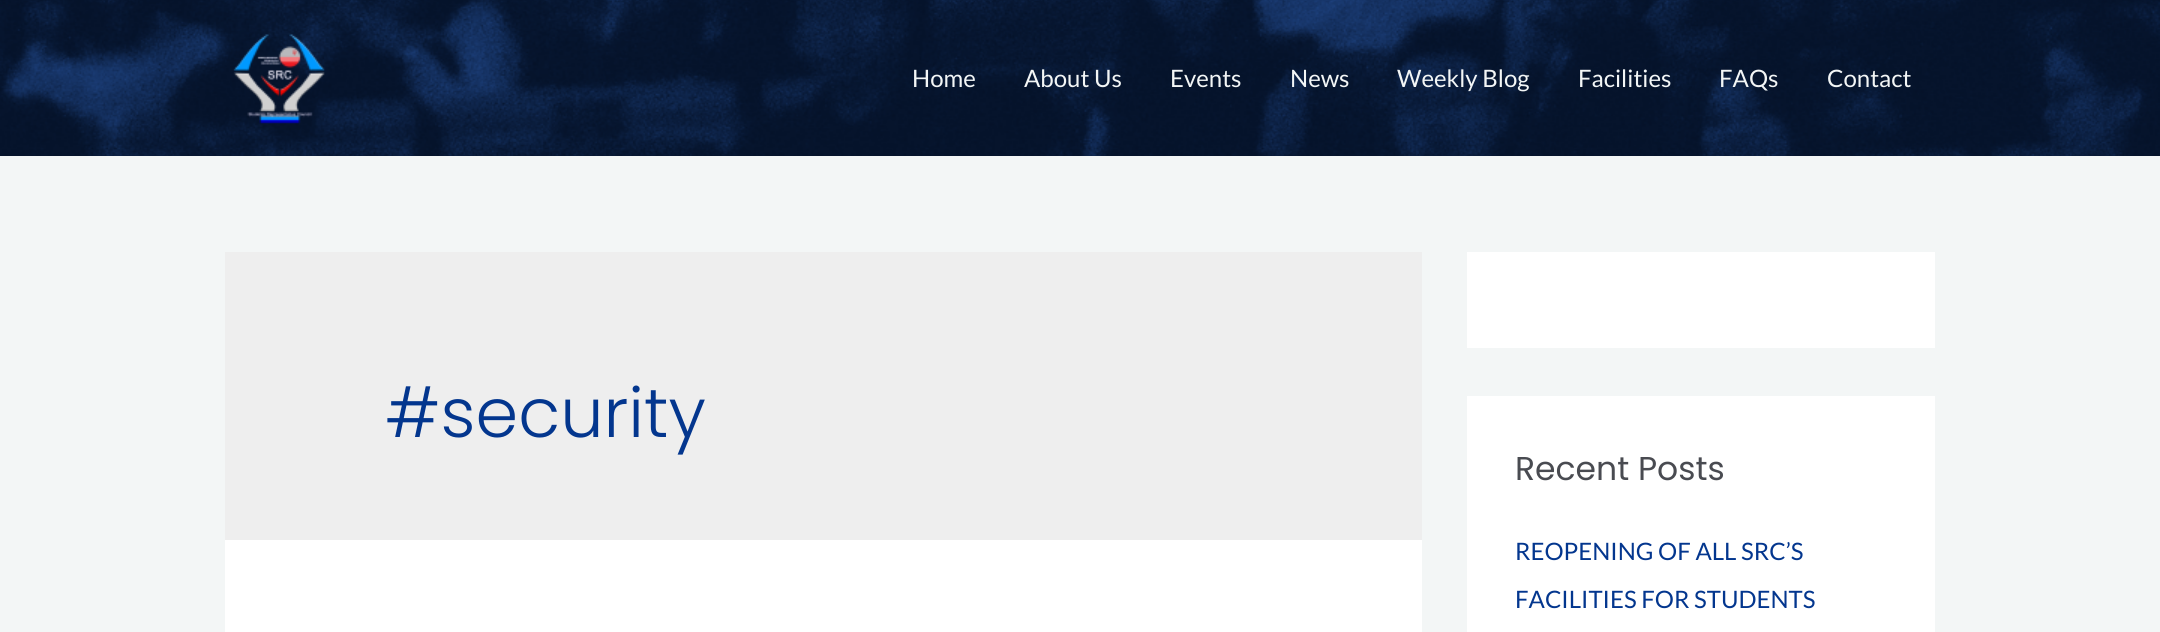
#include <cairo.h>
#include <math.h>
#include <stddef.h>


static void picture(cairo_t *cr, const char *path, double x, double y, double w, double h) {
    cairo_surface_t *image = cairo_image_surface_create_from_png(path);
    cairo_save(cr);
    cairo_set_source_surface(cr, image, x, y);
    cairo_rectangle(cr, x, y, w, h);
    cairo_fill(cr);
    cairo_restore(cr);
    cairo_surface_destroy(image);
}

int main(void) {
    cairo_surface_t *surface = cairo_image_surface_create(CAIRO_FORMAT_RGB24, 2160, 632);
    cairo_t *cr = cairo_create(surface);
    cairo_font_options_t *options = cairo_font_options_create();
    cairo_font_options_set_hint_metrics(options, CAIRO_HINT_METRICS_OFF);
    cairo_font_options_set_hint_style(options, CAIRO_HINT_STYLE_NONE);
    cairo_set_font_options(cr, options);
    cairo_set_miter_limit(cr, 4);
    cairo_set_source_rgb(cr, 0.953, 0.961, 0.961);
    cairo_paint(cr);
    picture(cr, "img1.png", 0, 0, 2160, 156);
    picture(cr, "img2.png", 233, 33, 92, 91);
    cairo_select_font_face(cr, "Lato", CAIRO_FONT_SLANT_NORMAL, CAIRO_FONT_WEIGHT_NORMAL);
    cairo_set_font_size(cr, 24);
    cairo_set_source_rgb(cr, 0.953, 0.961, 0.961);
    cairo_move_to(cr, 912, 87);
    cairo_show_text(cr, "Home");
    cairo_move_to(cr, 1024, 87);
    cairo_show_text(cr, "About Us");
    cairo_move_to(cr, 1170, 87);
    cairo_show_text(cr, "Events");
    cairo_move_to(cr, 1290, 87);
    cairo_show_text(cr, "News");
    cairo_move_to(cr, 1397, 87);
    cairo_show_text(cr, "Weekly Blog");
    cairo_move_to(cr, 1578, 87);
    cairo_show_text(cr, "Facilities");
    cairo_move_to(cr, 1719, 87);
    cairo_show_text(cr, "FAQs");
    cairo_move_to(cr, 1827, 87);
    cairo_show_text(cr, "Contact");
    cairo_set_source_rgb(cr, 0.933, 0.933, 0.933);
    cairo_rectangle(cr, 225, 252, 1197, 288);
    cairo_fill(cr);
    cairo_select_font_face(cr, "Poppins Light", CAIRO_FONT_SLANT_NORMAL, CAIRO_FONT_WEIGHT_NORMAL);
    cairo_set_font_size(cr, 68.5);
    cairo_set_source_rgb(cr, 0.012, 0.212, 0.557);
    cairo_move_to(cr, 385, 437);
    cairo_show_text(cr, "#security");
    cairo_set_source_rgb(cr, 1, 1, 1);
    cairo_rectangle(cr, 225, 540, 1197, 92);
    cairo_fill(cr);
    cairo_rectangle(cr, 1467, 252, 468, 96);
    cairo_fill(cr);
    cairo_rectangle(cr, 1467, 396, 468, 236);
    cairo_fill(cr);
    cairo_select_font_face(cr, "Poppins", CAIRO_FONT_SLANT_NORMAL, CAIRO_FONT_WEIGHT_NORMAL);
    cairo_set_font_size(cr, 33);
    cairo_set_source_rgb(cr, 0.286, 0.294, 0.318);
    cairo_move_to(cr, 1515, 480);
    cairo_show_text(cr, "Recent Posts");
    cairo_select_font_face(cr, "Lato", CAIRO_FONT_SLANT_NORMAL, CAIRO_FONT_WEIGHT_NORMAL);
    cairo_set_font_size(cr, 24);
    cairo_set_source_rgb(cr, 0.012, 0.212, 0.557);
    cairo_move_to(cr, 1515, 560);
    cairo_show_text(cr, "REOPENING OF ALL SRC’S");
    cairo_move_to(cr, 1515, 608);
    cairo_show_text(cr, "FACILITIES FOR STUDENTS");
    cairo_surface_write_to_png(surface, "page.png");
    cairo_font_options_destroy(options);
    cairo_destroy(cr);
    cairo_surface_destroy(surface);
    return 0;
}
